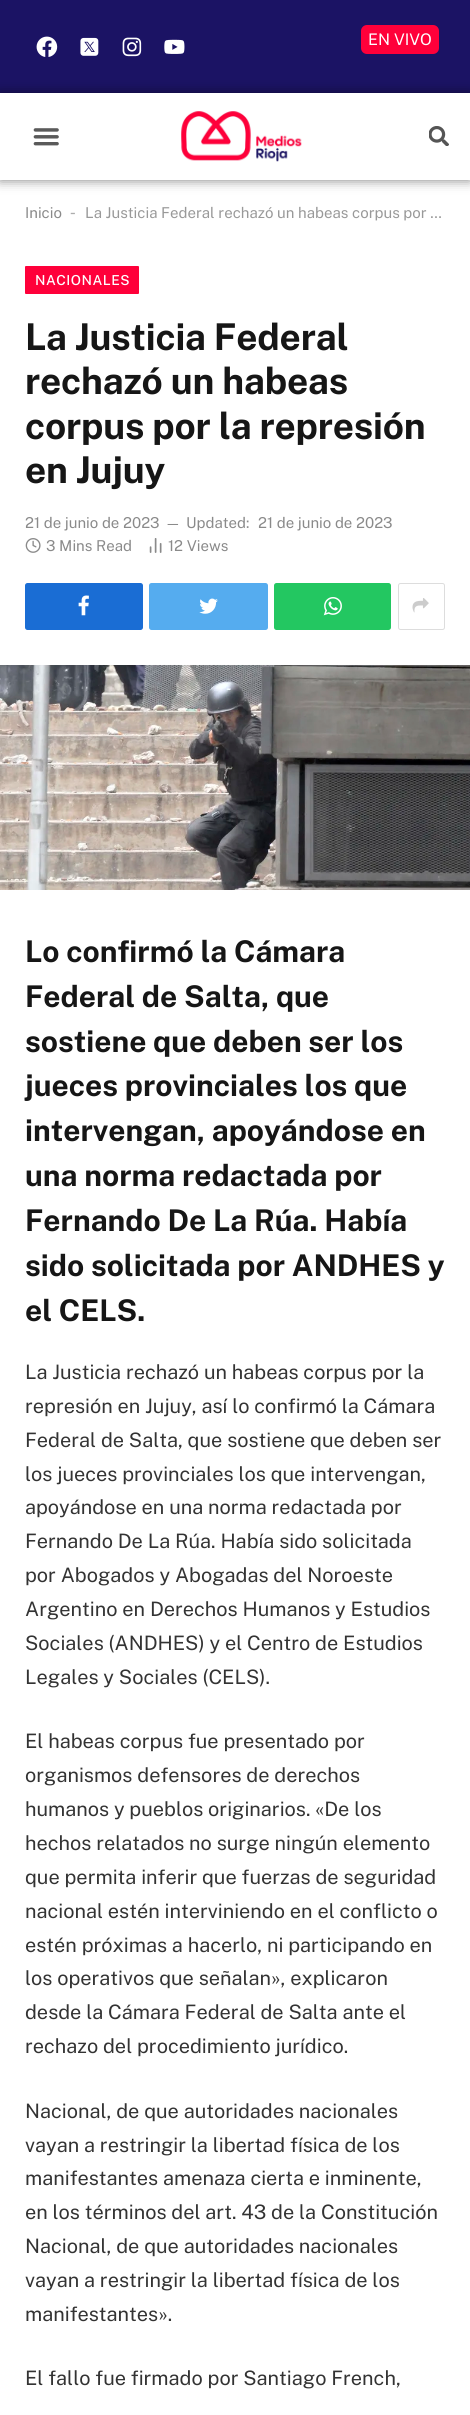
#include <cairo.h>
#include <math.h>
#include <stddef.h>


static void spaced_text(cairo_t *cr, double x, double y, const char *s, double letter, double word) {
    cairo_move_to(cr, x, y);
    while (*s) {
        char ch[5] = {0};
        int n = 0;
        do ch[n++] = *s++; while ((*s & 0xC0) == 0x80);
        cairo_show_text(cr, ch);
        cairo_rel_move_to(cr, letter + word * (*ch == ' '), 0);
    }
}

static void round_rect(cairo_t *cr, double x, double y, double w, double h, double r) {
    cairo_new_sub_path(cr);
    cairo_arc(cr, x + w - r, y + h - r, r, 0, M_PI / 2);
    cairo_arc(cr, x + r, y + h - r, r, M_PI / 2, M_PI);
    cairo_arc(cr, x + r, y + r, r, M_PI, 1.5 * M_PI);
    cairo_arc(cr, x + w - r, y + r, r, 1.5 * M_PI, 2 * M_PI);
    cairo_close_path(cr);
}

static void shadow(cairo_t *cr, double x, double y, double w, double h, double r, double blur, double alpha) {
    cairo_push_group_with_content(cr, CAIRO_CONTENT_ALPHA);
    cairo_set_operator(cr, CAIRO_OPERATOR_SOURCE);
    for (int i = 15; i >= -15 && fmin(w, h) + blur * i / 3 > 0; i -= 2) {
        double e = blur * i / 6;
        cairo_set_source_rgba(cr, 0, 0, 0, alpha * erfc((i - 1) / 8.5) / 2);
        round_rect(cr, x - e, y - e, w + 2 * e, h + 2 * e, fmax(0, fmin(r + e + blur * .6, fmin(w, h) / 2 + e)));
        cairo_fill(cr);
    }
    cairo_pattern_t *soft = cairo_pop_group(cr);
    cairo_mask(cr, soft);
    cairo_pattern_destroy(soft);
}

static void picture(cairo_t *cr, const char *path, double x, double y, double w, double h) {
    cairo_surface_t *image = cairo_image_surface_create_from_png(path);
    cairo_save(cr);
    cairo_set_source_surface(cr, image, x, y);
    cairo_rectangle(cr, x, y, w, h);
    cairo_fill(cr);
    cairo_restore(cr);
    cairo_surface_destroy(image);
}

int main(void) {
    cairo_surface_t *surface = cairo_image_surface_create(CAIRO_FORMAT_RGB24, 470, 2415);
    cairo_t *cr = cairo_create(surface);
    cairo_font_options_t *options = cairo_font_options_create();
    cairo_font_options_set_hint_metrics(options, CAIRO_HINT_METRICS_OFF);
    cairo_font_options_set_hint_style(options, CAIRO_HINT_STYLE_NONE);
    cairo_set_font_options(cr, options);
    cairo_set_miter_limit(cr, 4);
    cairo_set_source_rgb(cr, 1, 1, 1);
    cairo_paint(cr);
    cairo_set_source_rgb(cr, 0.106, 0.078, 0.392);
    cairo_rectangle(cr, 0, 0, 470, 93);
    cairo_fill(cr);
    picture(cr, "img1.png", 36, 36, 22, 21);
    picture(cr, "img2.png", 80, 37, 19, 19);
    picture(cr, "img3.png", 122, 37, 20, 20);
    picture(cr, "img4.png", 164, 39, 21, 15);
    cairo_set_source_rgb(cr, 1, 0, 0.227);
    round_rect(cr, 361, 25, 78, 29, 6);
    cairo_fill(cr);
    cairo_select_font_face(cr, "Public Sans", CAIRO_FONT_SLANT_NORMAL, CAIRO_FONT_WEIGHT_NORMAL);
    cairo_set_font_size(cr, 16);
    cairo_set_source_rgb(cr, 1, 1, 1);
    cairo_move_to(cr, 368, 45);
    cairo_show_text(cr, "EN VIVO");
    cairo_set_source_rgb(cr, 0, 0, 0);
    shadow(cr, 0, 93, 470, 87, 0, 6, 0.5);
    cairo_set_source_rgb(cr, 1, 1, 1);
    cairo_rectangle(cr, 0, 93, 470, 87);
    cairo_fill(cr);
    picture(cr, "img5.png", 33, 128, 26, 18);
    picture(cr, "img6.png", 181, 111, 121, 51);
    picture(cr, "img7.png", 429, 126, 20, 20);
    cairo_set_font_size(cr, 15);
    cairo_set_source_rgb(cr, 0.541, 0.541, 0.541);
    cairo_move_to(cr, 25, 218);
    cairo_show_text(cr, "Inicio");
    cairo_select_font_face(cr, "Liberation Sans", CAIRO_FONT_SLANT_NORMAL, CAIRO_FONT_WEIGHT_NORMAL);
    cairo_set_font_size(cr, 17);
    cairo_set_source_rgb(cr, 0.678, 0.678, 0.678);
    cairo_move_to(cr, 70, 218);
    cairo_show_text(cr, "-");
    cairo_select_font_face(cr, "Public Sans", CAIRO_FONT_SLANT_NORMAL, CAIRO_FONT_WEIGHT_NORMAL);
    cairo_set_font_size(cr, 15);
    cairo_set_source_rgb(cr, 0.6, 0.6, 0.6);
    cairo_move_to(cr, 85, 218);
    cairo_show_text(cr, "La Justicia Federal rechazó un habeas corpus por …");
    cairo_set_source_rgb(cr, 1, 0, 0.227);
    round_rect(cr, 25, 266, 114, 28, 1);
    cairo_fill(cr);
    cairo_select_font_face(cr, "Public Sans Medium", CAIRO_FONT_SLANT_NORMAL, CAIRO_FONT_WEIGHT_NORMAL);
    cairo_set_font_size(cr, 13.75);
    cairo_set_source_rgb(cr, 1, 1, 1);
    spaced_text(cr, 35, 285, "NACIONALES", 0.5, 0);
    cairo_select_font_face(cr, "Public Sans", CAIRO_FONT_SLANT_NORMAL, CAIRO_FONT_WEIGHT_BOLD);
    cairo_set_font_size(cr, 36.9);
    cairo_set_source_rgb(cr, 0.086, 0.086, 0.086);
    spaced_text(cr, 25, 350, "La Justicia Federal", -0.2, 0);
    spaced_text(cr, 25, 394, "rechazó un habeas", -0.2, 0);
    spaced_text(cr, 25, 439, "corpus por la represión", -0.2, 0);
    spaced_text(cr, 25, 483, "en Jujuy", -0.2, 0);
    cairo_select_font_face(cr, "Public Sans", CAIRO_FONT_SLANT_NORMAL, CAIRO_FONT_WEIGHT_NORMAL);
    cairo_set_font_size(cr, 15);
    cairo_set_source_rgb(cr, 0.541, 0.541, 0.541);
    cairo_move_to(cr, 25, 528);
    cairo_show_text(cr, "21 de junio de 2023");
    cairo_set_font_size(cr, 14);
    cairo_move_to(cr, 165, 528);
    cairo_show_text(cr, "—");
    cairo_set_font_size(cr, 15);
    cairo_move_to(cr, 186, 528);
    cairo_show_text(cr, "Updated:");
    cairo_move_to(cr, 258, 528);
    cairo_show_text(cr, "21 de junio de 2023");
    picture(cr, "img8.png", 25, 538, 16, 15);
    cairo_move_to(cr, 46, 551);
    cairo_show_text(cr, "3 Mins Read");
    picture(cr, "img9.png", 149, 538, 13, 15);
    cairo_move_to(cr, 168, 551);
    cairo_show_text(cr, "12 Views");
    cairo_set_source_rgb(cr, 0.102, 0.427, 0.831);
    round_rect(cr, 25, 583, 118, 47, 2.5);
    cairo_fill(cr);
    picture(cr, "img10.png", 78, 595, 11, 21);
    cairo_set_source_rgb(cr, 0.333, 0.675, 0.937);
    round_rect(cr, 149, 583, 119, 47, 2.5);
    cairo_fill(cr);
    picture(cr, "img11.png", 199, 598, 19, 16);
    cairo_set_source_rgb(cr, 0.137, 0.78, 0.38);
    round_rect(cr, 274, 583, 117, 47, 2.5);
    cairo_fill(cr);
    picture(cr, "img12.png", 323, 597, 19, 19);
    round_rect(cr, 398.5, 583.5, 46, 46, 2);
    cairo_set_source_rgb(cr, 0.867, 0.867, 0.867);
    cairo_set_line_width(cr, 1);
    cairo_stroke(cr);
    picture(cr, "img13.png", 412, 598, 17, 15);
    picture(cr, "img14.png", 0, 665, 470, 225);
    cairo_select_font_face(cr, "Public Sans", CAIRO_FONT_SLANT_NORMAL, CAIRO_FONT_WEIGHT_BOLD);
    cairo_set_font_size(cr, 29.9);
    cairo_set_source_rgb(cr, 0.086, 0.086, 0.086);
    cairo_move_to(cr, 25, 962);
    cairo_show_text(cr, "Lo confirmó la Cámara");
    cairo_move_to(cr, 25, 1007);
    cairo_show_text(cr, "Federal de Salta, que");
    cairo_move_to(cr, 25, 1052);
    cairo_show_text(cr, "sostiene que deben ser los");
    cairo_move_to(cr, 25, 1096);
    cairo_show_text(cr, "jueces provinciales los que");
    cairo_move_to(cr, 25, 1141);
    cairo_show_text(cr, "intervengan, apoyándose en");
    cairo_move_to(cr, 25, 1186);
    cairo_show_text(cr, "una norma redactada por");
    cairo_move_to(cr, 25, 1231);
    cairo_show_text(cr, "Fernando De La Rúa. Había");
    cairo_move_to(cr, 25, 1276);
    cairo_show_text(cr, "sido solicitada por ANDHES y");
    cairo_move_to(cr, 25, 1321);
    cairo_show_text(cr, "el CELS.");
    cairo_select_font_face(cr, "Public Sans", CAIRO_FONT_SLANT_NORMAL, CAIRO_FONT_WEIGHT_NORMAL);
    cairo_set_font_size(cr, 19.9);
    cairo_set_source_rgb(cr, 0.2, 0.2, 0.2);
    cairo_move_to(cr, 25, 1379);
    cairo_show_text(cr, "La Justicia rechazó un habeas corpus por la");
    cairo_move_to(cr, 25, 1413);
    cairo_show_text(cr, "represión en Jujuy, así lo confirmó la Cámara");
    cairo_move_to(cr, 25, 1447);
    cairo_show_text(cr, "Federal de Salta, que sostiene que deben ser");
    cairo_move_to(cr, 25, 1481);
    cairo_show_text(cr, "los jueces provinciales los que intervengan,");
    cairo_move_to(cr, 25, 1514);
    cairo_show_text(cr, "apoyándose en una norma redactada por");
    cairo_move_to(cr, 25, 1548);
    cairo_show_text(cr, "Fernando De La Rúa. Había sido solicitada");
    cairo_move_to(cr, 25, 1582);
    cairo_show_text(cr, "por Abogados y Abogadas del Noroeste");
    cairo_move_to(cr, 25, 1616);
    cairo_show_text(cr, "Argentino en Derechos Humanos y Estudios");
    cairo_move_to(cr, 25, 1650);
    cairo_show_text(cr, "Sociales (ANDHES) y el Centro de Estudios");
    cairo_move_to(cr, 25, 1684);
    cairo_show_text(cr, "Legales y Sociales (CELS).");
    cairo_move_to(cr, 25, 1748);
    cairo_show_text(cr, "El habeas corpus fue presentado por");
    cairo_move_to(cr, 25, 1782);
    cairo_show_text(cr, "organismos defensores de derechos");
    cairo_move_to(cr, 25, 1816);
    cairo_show_text(cr, "humanos y pueblos originarios. «De los");
    cairo_move_to(cr, 25, 1850);
    cairo_show_text(cr, "hechos relatados no surge ningún elemento");
    cairo_move_to(cr, 25, 1884);
    cairo_show_text(cr, "que permita inferir que fuerzas de seguridad");
    cairo_move_to(cr, 25, 1918);
    cairo_show_text(cr, "nacional estén interviniendo en el conflicto o");
    cairo_move_to(cr, 25, 1952);
    cairo_show_text(cr, "estén próximas a hacerlo, ni participando en");
    cairo_move_to(cr, 25, 1985);
    cairo_show_text(cr, "los operativos que señalan», explicaron");
    cairo_move_to(cr, 25, 2019);
    cairo_show_text(cr, "desde la Cámara Federal de Salta ante el");
    cairo_move_to(cr, 25, 2053);
    cairo_show_text(cr, "rechazo del procedimiento jurídico.");
    cairo_move_to(cr, 25, 2118);
    cairo_show_text(cr, "Nacional, de que autoridades nacionales");
    cairo_move_to(cr, 25, 2152);
    cairo_show_text(cr, "vayan a restringir la libertad física de los");
    cairo_move_to(cr, 25, 2185);
    cairo_show_text(cr, "manifestantes amenaza cierta e inminente,");
    cairo_move_to(cr, 25, 2219);
    cairo_show_text(cr, "en los términos del art. 43 de la Constitución");
    cairo_move_to(cr, 25, 2253);
    cairo_show_text(cr, "Nacional, de que autoridades nacionales");
    cairo_move_to(cr, 25, 2287);
    cairo_show_text(cr, "vayan a restringir la libertad física de los");
    cairo_move_to(cr, 25, 2321);
    cairo_show_text(cr, "manifestantes».");
    cairo_move_to(cr, 25, 2385);
    cairo_show_text(cr, "El fallo fue firmado por Santiago French,");
    cairo_surface_write_to_png(surface, "page.png");
    cairo_font_options_destroy(options);
    cairo_destroy(cr);
    cairo_surface_destroy(surface);
    return 0;
}
